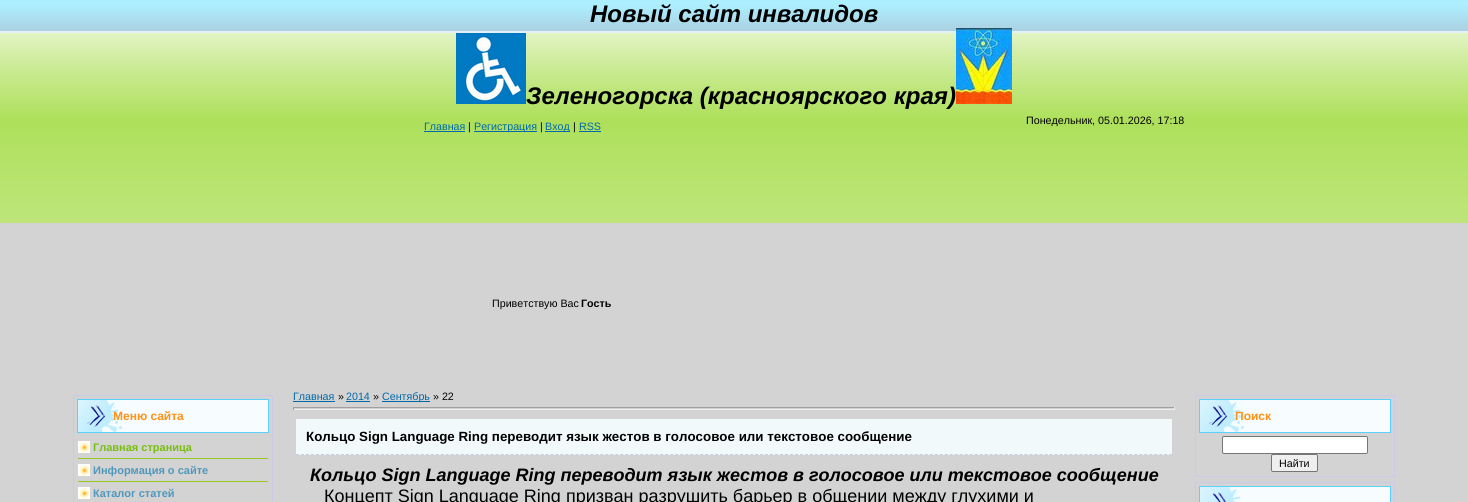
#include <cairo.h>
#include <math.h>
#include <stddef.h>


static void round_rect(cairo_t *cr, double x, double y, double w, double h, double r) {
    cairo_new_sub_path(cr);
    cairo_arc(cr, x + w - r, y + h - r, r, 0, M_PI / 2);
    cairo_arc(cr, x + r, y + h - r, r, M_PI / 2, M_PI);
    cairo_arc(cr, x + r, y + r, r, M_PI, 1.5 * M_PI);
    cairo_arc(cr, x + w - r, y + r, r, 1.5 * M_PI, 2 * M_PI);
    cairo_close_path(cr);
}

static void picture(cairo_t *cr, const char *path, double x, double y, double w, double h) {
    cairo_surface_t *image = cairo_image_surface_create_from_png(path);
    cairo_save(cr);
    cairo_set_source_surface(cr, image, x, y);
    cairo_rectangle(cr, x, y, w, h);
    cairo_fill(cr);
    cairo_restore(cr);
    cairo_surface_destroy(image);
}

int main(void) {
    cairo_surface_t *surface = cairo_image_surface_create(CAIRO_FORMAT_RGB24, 1468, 502);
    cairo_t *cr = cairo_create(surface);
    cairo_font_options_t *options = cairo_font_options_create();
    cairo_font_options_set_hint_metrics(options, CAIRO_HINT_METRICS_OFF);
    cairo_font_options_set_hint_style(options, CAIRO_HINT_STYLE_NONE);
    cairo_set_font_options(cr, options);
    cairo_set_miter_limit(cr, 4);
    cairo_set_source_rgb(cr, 0.827, 0.827, 0.827);
    cairo_paint(cr);
    picture(cr, "img1.png", 0, 0, 1468, 223);
    cairo_select_font_face(cr, "Liberation Sans", CAIRO_FONT_SLANT_ITALIC, CAIRO_FONT_WEIGHT_BOLD);
    cairo_set_font_size(cr, 24);
    cairo_set_source_rgb(cr, 0, 0, 0);
    cairo_move_to(cr, 590, 22);
    cairo_show_text(cr, "Новый сайт инвалидов");
    picture(cr, "img2.png", 456, 33, 70, 71);
    cairo_move_to(cr, 526, 104);
    cairo_show_text(cr, "Зеленогорска (красноярского края)");
    picture(cr, "img3.png", 956, 28, 56, 76);
    cairo_select_font_face(cr, "Liberation Sans", CAIRO_FONT_SLANT_NORMAL, CAIRO_FONT_WEIGHT_NORMAL);
    cairo_set_font_size(cr, 10.7);
    cairo_set_source_rgb(cr, 0, 0.412, 0.663);
    cairo_move_to(cr, 424, 130);
    cairo_show_text(cr, "Главная");
    cairo_rectangle(cr, 424, 131, 41, 1);
    cairo_fill(cr);
    cairo_set_source_rgb(cr, 0, 0, 0);
    cairo_move_to(cr, 468, 130);
    cairo_show_text(cr, "|");
    cairo_set_source_rgb(cr, 0, 0.412, 0.663);
    cairo_rectangle(cr, 474, 131, 63, 1);
    cairo_fill(cr);
    cairo_move_to(cr, 474, 130);
    cairo_show_text(cr, "Регистрация");
    cairo_set_source_rgb(cr, 0, 0, 0);
    cairo_move_to(cr, 540, 130);
    cairo_show_text(cr, "|");
    cairo_set_source_rgb(cr, 0, 0.412, 0.663);
    cairo_rectangle(cr, 545, 131, 25, 1);
    cairo_fill(cr);
    cairo_move_to(cr, 545, 130);
    cairo_show_text(cr, "Вход");
    cairo_set_source_rgb(cr, 0, 0, 0);
    cairo_move_to(cr, 573, 130);
    cairo_show_text(cr, "|");
    cairo_set_source_rgb(cr, 0, 0.412, 0.663);
    cairo_move_to(cr, 579, 130);
    cairo_show_text(cr, "RSS");
    cairo_rectangle(cr, 579, 131, 22, 1);
    cairo_fill(cr);
    cairo_set_source_rgb(cr, 0, 0, 0);
    cairo_move_to(cr, 1026, 124);
    cairo_show_text(cr, "Понедельник, 05.01.2026, 17:18");
    cairo_move_to(cr, 492, 307);
    cairo_show_text(cr, "Приветствую Вас");
    cairo_select_font_face(cr, "Liberation Sans", CAIRO_FONT_SLANT_NORMAL, CAIRO_FONT_WEIGHT_BOLD);
    cairo_move_to(cr, 581, 307);
    cairo_show_text(cr, "Гость");
    cairo_rectangle(cr, 73.5, 395.5, 199, 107);
    cairo_set_source_rgb(cr, 0.792, 0.792, 0.902);
    cairo_set_line_width(cr, 1);
    cairo_stroke(cr);
    cairo_set_source_rgb(cr, 0.961, 0.988, 1);
    cairo_rectangle(cr, 122, 400, 146, 32);
    cairo_fill(cr);
    picture(cr, "img4.png", 78, 400, 44, 32);
    cairo_rectangle(cr, 77.5, 399.5, 191, 33);
    cairo_set_source_rgb(cr, 0.357, 0.82, 0.988);
    cairo_stroke(cr);
    cairo_set_font_size(cr, 12);
    cairo_set_source_rgb(cr, 1, 0.569, 0.082);
    cairo_move_to(cr, 113, 420);
    cairo_show_text(cr, "Меню сайта");
    picture(cr, "img5.png", 78, 441, 12, 12);
    cairo_set_source_rgb(cr, 0.592, 0.784, 0.129);
    cairo_rectangle(cr, 78, 458, 190, 1);
    cairo_fill(cr);
    cairo_set_font_size(cr, 11);
    cairo_set_source_rgb(cr, 0.475, 0.741, 0.067);
    cairo_move_to(cr, 93, 451);
    cairo_show_text(cr, "Главная страница");
    picture(cr, "img5.png", 78, 464, 12, 12);
    cairo_set_source_rgb(cr, 0.592, 0.784, 0.129);
    cairo_rectangle(cr, 78, 481, 190, 1);
    cairo_fill(cr);
    cairo_set_source_rgb(cr, 0.31, 0.596, 0.737);
    cairo_move_to(cr, 93, 474);
    cairo_show_text(cr, "Информация о сайте");
    picture(cr, "img5.png", 78, 487, 12, 12);
    cairo_move_to(cr, 93, 497);
    cairo_show_text(cr, "Каталог статей");
    cairo_select_font_face(cr, "Liberation Sans", CAIRO_FONT_SLANT_NORMAL, CAIRO_FONT_WEIGHT_NORMAL);
    cairo_set_font_size(cr, 10.7);
    cairo_set_source_rgb(cr, 0, 0.412, 0.663);
    cairo_move_to(cr, 293, 400);
    cairo_show_text(cr, "Главная");
    cairo_rectangle(cr, 293, 401, 42, 1);
    cairo_fill(cr);
    cairo_set_source_rgb(cr, 0, 0, 0);
    cairo_move_to(cr, 338, 400);
    cairo_show_text(cr, "»");
    cairo_set_source_rgb(cr, 0, 0.412, 0.663);
    cairo_move_to(cr, 346, 400);
    cairo_show_text(cr, "2014");
    cairo_rectangle(cr, 346, 401, 24, 1);
    cairo_fill(cr);
    cairo_set_source_rgb(cr, 0, 0, 0);
    cairo_move_to(cr, 373, 400);
    cairo_show_text(cr, "»");
    cairo_set_source_rgb(cr, 0, 0.412, 0.663);
    cairo_rectangle(cr, 382, 401, 48, 1);
    cairo_fill(cr);
    cairo_move_to(cr, 382, 400);
    cairo_show_text(cr, "Сентябрь");
    cairo_set_source_rgb(cr, 0, 0, 0);
    cairo_move_to(cr, 433, 400);
    cairo_show_text(cr, "» 22");
    cairo_set_source_rgb(cr, 0.624, 0.624, 0.624);
    cairo_rectangle(cr, 293, 407, 882, 1);
    cairo_fill(cr);
    cairo_set_source_rgb(cr, 0.933, 0.933, 0.933);
    cairo_rectangle(cr, 1174, 407, 1, 3);
    cairo_fill(cr);
    cairo_rectangle(cr, 293, 409, 882, 1);
    cairo_fill(cr);
    cairo_set_source_rgb(cr, 0.624, 0.624, 0.624);
    cairo_rectangle(cr, 293, 407, 1, 3);
    cairo_fill(cr);
    cairo_set_source_rgb(cr, 0.945, 0.973, 0.984);
    cairo_rectangle(cr, 296, 419, 876, 36);
    cairo_fill(cr);
    cairo_new_path(cr);
    cairo_move_to(cr, 296, 454.5);
    cairo_line_to(cr, 1172, 454.5);
    cairo_set_source_rgb(cr, 0.796, 0.796, 0.902);
    cairo_set_dash(cr, (double[]){3, 1.99}, 2, 0);
    cairo_stroke(cr);
    cairo_select_font_face(cr, "Liberation Sans", CAIRO_FONT_SLANT_NORMAL, CAIRO_FONT_WEIGHT_BOLD);
    cairo_set_font_size(cr, 13.35);
    cairo_set_source_rgb(cr, 0, 0, 0);
    cairo_move_to(cr, 306, 441);
    cairo_show_text(cr, "Кольцо Sign Language Ring переводит язык жестов в голосовое или текстовое сообщение");
    cairo_select_font_face(cr, "Liberation Sans", CAIRO_FONT_SLANT_ITALIC, CAIRO_FONT_WEIGHT_BOLD);
    cairo_set_font_size(cr, 18);
    cairo_move_to(cr, 310, 481);
    cairo_show_text(cr, "Кольцо Sign Language Ring переводит язык жестов в голосовое или текстовое сообщение");
    cairo_select_font_face(cr, "Liberation Sans", CAIRO_FONT_SLANT_NORMAL, CAIRO_FONT_WEIGHT_NORMAL);
    cairo_move_to(cr, 324, 502);
    cairo_show_text(cr, "Концепт Sign Language Ring призван разрушить барьер в общении между глухими и");
    cairo_rectangle(cr, 1195.5, 395.5, 199, 81);
    cairo_set_source_rgb(cr, 0.792, 0.792, 0.902);
    cairo_set_dash(cr, NULL, 0, 0);
    cairo_stroke(cr);
    cairo_set_source_rgb(cr, 0.961, 0.988, 1);
    cairo_rectangle(cr, 1244, 400, 146, 32);
    cairo_fill(cr);
    picture(cr, "img4.png", 1200, 400, 44, 32);
    cairo_rectangle(cr, 1199.5, 399.5, 191, 33);
    cairo_set_source_rgb(cr, 0.357, 0.82, 0.988);
    cairo_stroke(cr);
    cairo_select_font_face(cr, "Liberation Sans", CAIRO_FONT_SLANT_NORMAL, CAIRO_FONT_WEIGHT_BOLD);
    cairo_set_font_size(cr, 12);
    cairo_set_source_rgb(cr, 1, 0.569, 0.082);
    cairo_move_to(cr, 1235, 420);
    cairo_show_text(cr, "Поиск");
    cairo_set_source_rgb(cr, 1, 1, 1);
    round_rect(cr, 1222.5, 436.5, 145, 17, 1.5);
    cairo_fill_preserve(cr);
    cairo_set_source_rgb(cr, 0.463, 0.463, 0.463);
    cairo_stroke(cr);
    cairo_set_source_rgb(cr, 0.937, 0.937, 0.937);
    round_rect(cr, 1271.5, 454.5, 46, 17, 1.5);
    cairo_fill_preserve(cr);
    cairo_set_source_rgb(cr, 0.463, 0.463, 0.463);
    cairo_stroke(cr);
    cairo_select_font_face(cr, "Liberation Sans", CAIRO_FONT_SLANT_NORMAL, CAIRO_FONT_WEIGHT_NORMAL);
    cairo_set_font_size(cr, 10.7);
    cairo_set_source_rgb(cr, 0, 0, 0);
    cairo_move_to(cr, 1279, 467);
    cairo_show_text(cr, "Найти");
    cairo_rectangle(cr, 1195.5, 482.5, 199, 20);
    cairo_set_source_rgb(cr, 0.792, 0.792, 0.902);
    cairo_stroke(cr);
    cairo_set_source_rgb(cr, 0.961, 0.988, 1);
    cairo_rectangle(cr, 1241, 487, 149, 15);
    cairo_fill(cr);
    picture(cr, "img6.png", 1200, 487, 41, 15);
    cairo_rectangle(cr, 1199.5, 486.5, 191, 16);
    cairo_set_source_rgb(cr, 0.357, 0.82, 0.988);
    cairo_stroke(cr);
    cairo_surface_write_to_png(surface, "page.png");
    cairo_font_options_destroy(options);
    cairo_destroy(cr);
    cairo_surface_destroy(surface);
    return 0;
}
